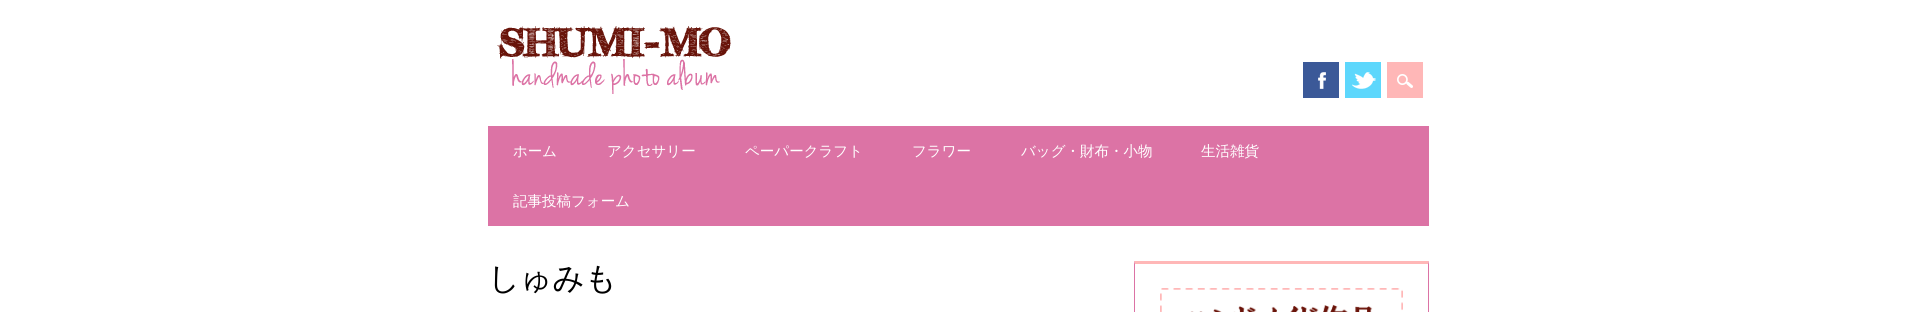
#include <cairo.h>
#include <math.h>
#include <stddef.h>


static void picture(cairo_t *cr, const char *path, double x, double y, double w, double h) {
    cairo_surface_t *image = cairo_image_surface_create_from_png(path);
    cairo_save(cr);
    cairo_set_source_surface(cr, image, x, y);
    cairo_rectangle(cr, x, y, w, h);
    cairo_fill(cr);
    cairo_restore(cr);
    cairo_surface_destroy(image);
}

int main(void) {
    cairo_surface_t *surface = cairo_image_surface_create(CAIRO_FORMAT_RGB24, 1917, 312);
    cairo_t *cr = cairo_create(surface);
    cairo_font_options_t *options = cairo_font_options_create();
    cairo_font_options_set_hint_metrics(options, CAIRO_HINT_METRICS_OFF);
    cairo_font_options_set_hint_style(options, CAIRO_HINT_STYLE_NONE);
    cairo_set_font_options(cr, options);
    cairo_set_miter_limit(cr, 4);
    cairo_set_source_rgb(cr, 1, 1, 1);
    cairo_paint(cr);
    picture(cr, "img1.png", 497, 26, 234, 68);
    cairo_set_source_rgb(cr, 0.231, 0.349, 0.596);
    cairo_rectangle(cr, 1303, 62, 36, 36);
    cairo_fill(cr);
    picture(cr, "img2.png", 1318, 72, 8, 17);
    cairo_set_source_rgb(cr, 0.365, 0.843, 0.988);
    cairo_rectangle(cr, 1345, 62, 36, 36);
    cairo_fill(cr);
    picture(cr, "img3.png", 1352, 72, 24, 17);
    cairo_set_source_rgb(cr, 1, 0.718, 0.718);
    cairo_rectangle(cr, 1387, 62, 36, 36);
    cairo_fill(cr);
    picture(cr, "img4.png", 1397, 74, 16, 14);
    cairo_set_source_rgb(cr, 0.863, 0.451, 0.647);
    cairo_rectangle(cr, 488, 126, 941, 100);
    cairo_fill(cr);
    cairo_select_font_face(cr, "WenQuanYi Zen Hei Medium", CAIRO_FONT_SLANT_NORMAL, CAIRO_FONT_WEIGHT_NORMAL);
    cairo_set_font_size(cr, 14.5);
    cairo_set_source_rgb(cr, 1, 1, 1);
    cairo_move_to(cr, 513, 156);
    cairo_show_text(cr, "ホーム");
    cairo_move_to(cr, 607, 156);
    cairo_show_text(cr, "アクセサリー");
    cairo_move_to(cr, 745, 156);
    cairo_show_text(cr, "ペーパークラフト");
    cairo_move_to(cr, 912, 156);
    cairo_show_text(cr, "フラワー");
    cairo_move_to(cr, 1021, 156);
    cairo_show_text(cr, "バッグ・財布・小物");
    cairo_move_to(cr, 1201, 156);
    cairo_show_text(cr, "生活雑貨");
    cairo_move_to(cr, 513, 206);
    cairo_show_text(cr, "記事投稿フォーム");
    cairo_set_font_size(cr, 31.5);
    cairo_set_source_rgb(cr, 0, 0, 0);
    cairo_move_to(cr, 488, 289);
    cairo_show_text(cr, "しゅみも");
    cairo_set_source_rgb(cr, 1, 0.718, 0.718);
    cairo_new_path(cr);
    cairo_move_to(cr, 1134, 261);
    cairo_line_to(cr, 1429, 261);
    cairo_line_to(cr, 1428, 264);
    cairo_line_to(cr, 1135, 264);
    cairo_close_path(cr);
    cairo_fill(cr);
    cairo_set_source_rgb(cr, 0.863, 0.451, 0.647);
    cairo_new_path(cr);
    cairo_move_to(cr, 1429, 261);
    cairo_line_to(cr, 1429, 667);
    cairo_line_to(cr, 1428, 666);
    cairo_line_to(cr, 1428, 264);
    cairo_close_path(cr);
    cairo_fill(cr);
    cairo_new_path(cr);
    cairo_move_to(cr, 1134, 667);
    cairo_line_to(cr, 1134, 261);
    cairo_line_to(cr, 1135, 264);
    cairo_line_to(cr, 1135, 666);
    cairo_close_path(cr);
    cairo_fill(cr);
    picture(cr, "img5.png", 1160, 288, 243, 24);
    cairo_surface_write_to_png(surface, "page.png");
    cairo_font_options_destroy(options);
    cairo_destroy(cr);
    cairo_surface_destroy(surface);
    return 0;
}
